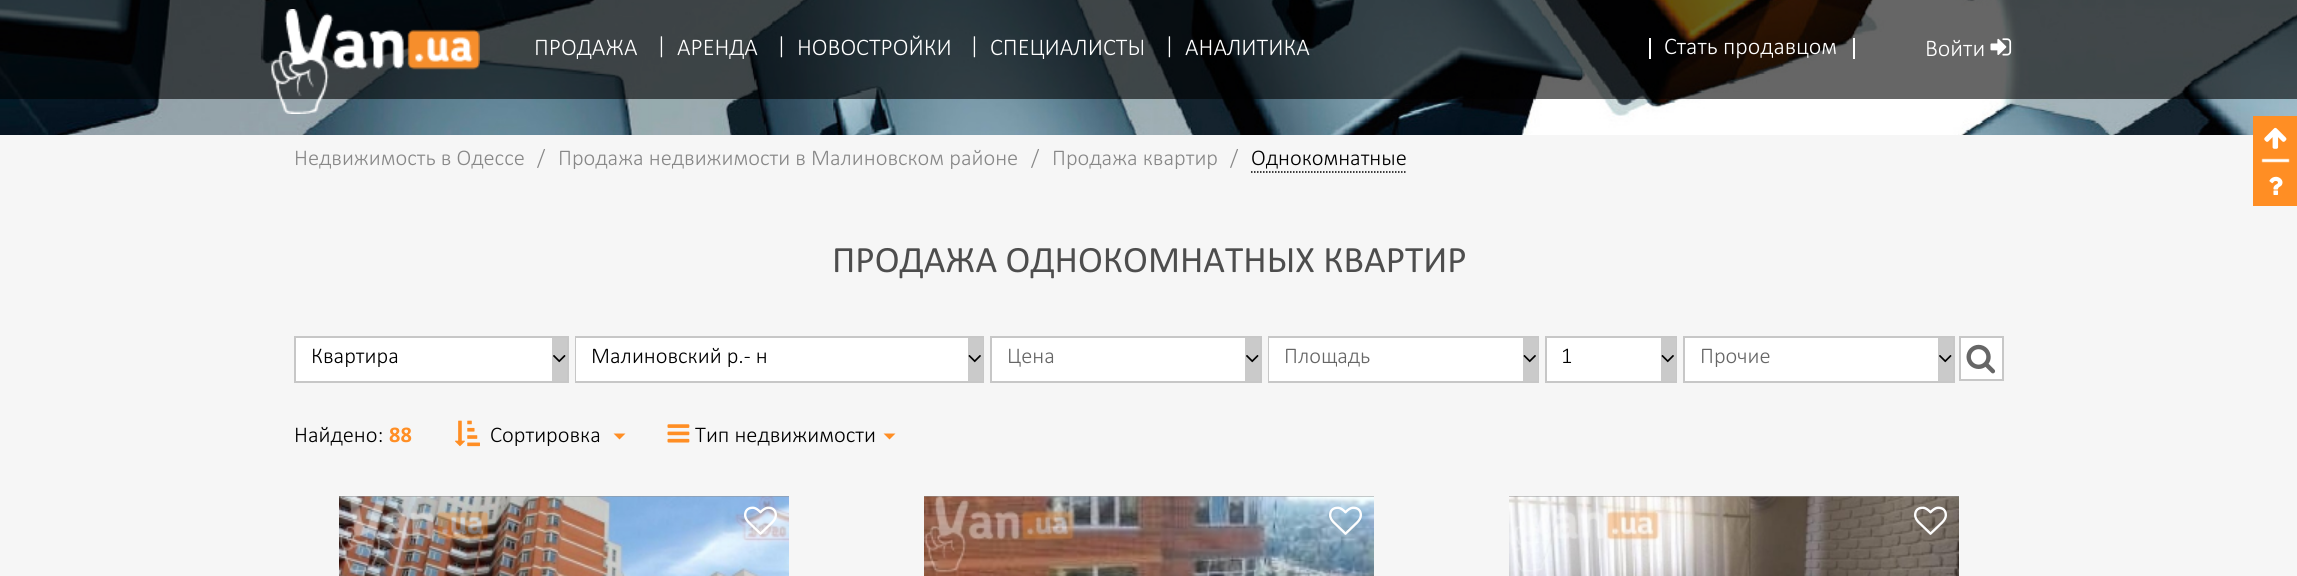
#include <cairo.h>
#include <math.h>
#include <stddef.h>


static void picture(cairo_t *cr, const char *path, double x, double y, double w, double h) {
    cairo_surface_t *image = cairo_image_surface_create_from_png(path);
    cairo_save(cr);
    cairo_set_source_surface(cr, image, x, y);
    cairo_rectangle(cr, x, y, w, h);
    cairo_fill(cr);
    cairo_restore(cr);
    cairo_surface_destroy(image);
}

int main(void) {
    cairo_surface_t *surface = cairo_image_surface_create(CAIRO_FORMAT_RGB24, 2297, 576);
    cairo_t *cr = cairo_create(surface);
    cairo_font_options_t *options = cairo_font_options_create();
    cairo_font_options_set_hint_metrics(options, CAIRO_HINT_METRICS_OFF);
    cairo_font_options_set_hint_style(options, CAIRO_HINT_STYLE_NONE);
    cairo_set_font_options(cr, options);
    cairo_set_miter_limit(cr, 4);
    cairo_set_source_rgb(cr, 0.961, 0.961, 0.961);
    cairo_paint(cr);
    picture(cr, "img3.png", 0, 0, 2297, 135);
    cairo_set_source_rgba(cr, 0, 0, 0, 0.6);
    cairo_rectangle(cr, 0, 0, 2297, 99);
    cairo_fill(cr);
    picture(cr, "img1.png", 271, 9, 209, 105);
    cairo_select_font_face(cr, "Calibri Light", CAIRO_FONT_SLANT_NORMAL, CAIRO_FONT_WEIGHT_NORMAL);
    cairo_set_font_size(cr, 24);
    cairo_set_source_rgb(cr, 1, 1, 1);
    cairo_move_to(cr, 534, 55);
    cairo_show_text(cr, "ПРОДАЖА");
    cairo_move_to(cr, 656, 53);
    cairo_show_text(cr, "|");
    cairo_move_to(cr, 677, 55);
    cairo_show_text(cr, "АРЕНДА");
    cairo_move_to(cr, 776, 53);
    cairo_show_text(cr, "|");
    cairo_move_to(cr, 797, 55);
    cairo_show_text(cr, "НОВОСТРОЙКИ");
    cairo_move_to(cr, 969, 53);
    cairo_show_text(cr, "|");
    cairo_move_to(cr, 990, 55);
    cairo_show_text(cr, "СПЕЦИАЛИСТЫ");
    cairo_move_to(cr, 1164, 53);
    cairo_show_text(cr, "|");
    cairo_move_to(cr, 1185, 55);
    cairo_show_text(cr, "АНАЛИТИКА");
    cairo_rectangle(cr, 1649, 38, 2, 21);
    cairo_fill(cr);
    cairo_move_to(cr, 1664, 54);
    cairo_show_text(cr, "Стать продавцом");
    cairo_rectangle(cr, 1853, 38, 2, 21);
    cairo_fill(cr);
    cairo_move_to(cr, 1925, 56);
    cairo_show_text(cr, "Войти");
    picture(cr, "img2.png", 1990, 38, 22, 18);
    cairo_set_font_size(cr, 22.5);
    cairo_set_source_rgb(cr, 0.533, 0.533, 0.533);
    cairo_move_to(cr, 294, 165);
    cairo_show_text(cr, "Недвижимость в Одессе");
    cairo_move_to(cr, 537, 165);
    cairo_show_text(cr, "/");
    cairo_move_to(cr, 558, 165);
    cairo_show_text(cr, "Продажа недвижимости в Малиновском районе");
    cairo_move_to(cr, 1031, 165);
    cairo_show_text(cr, "/");
    cairo_move_to(cr, 1052, 165);
    cairo_show_text(cr, "Продажа квартир");
    cairo_move_to(cr, 1230, 165);
    cairo_show_text(cr, "/");
    cairo_set_source_rgb(cr, 0, 0, 0);
    cairo_move_to(cr, 1251, 165);
    cairo_show_text(cr, "Однокомнатные");
    cairo_new_path(cr);
    cairo_move_to(cr, 1251, 172);
    cairo_line_to(cr, 1407, 172);
    cairo_set_line_width(cr, 1.5);
    cairo_set_dash(cr, (double[]){1.5, 1.5}, 2, 0);
    cairo_stroke(cr);
    cairo_select_font_face(cr, "Calibri", CAIRO_FONT_SLANT_NORMAL, CAIRO_FONT_WEIGHT_NORMAL);
    cairo_set_font_size(cr, 37.5);
    cairo_set_source_rgb(cr, 0.302, 0.302, 0.302);
    cairo_move_to(cr, 832, 272);
    cairo_show_text(cr, "ПРОДАЖА ОДНОКОМНАТНЫХ КВАРТИР");
    cairo_rectangle(cr, 295, 337, 273, 45);
    cairo_set_source_rgb(cr, 0.78, 0.78, 0.78);
    cairo_set_line_width(cr, 2);
    cairo_set_dash(cr, NULL, 0, 0);
    cairo_stroke(cr);
    cairo_set_source_rgb(cr, 1, 1, 1);
    cairo_rectangle(cr, 296, 338, 256, 43);
    cairo_fill(cr);
    cairo_select_font_face(cr, "Calibri Light", CAIRO_FONT_SLANT_NORMAL, CAIRO_FONT_WEIGHT_NORMAL);
    cairo_set_font_size(cr, 22.5);
    cairo_set_source_rgb(cr, 0, 0, 0);
    cairo_move_to(cr, 311, 363);
    cairo_show_text(cr, "Квартира");
    cairo_set_source_rgb(cr, 0.792, 0.792, 0.792);
    cairo_rectangle(cr, 552, 338, 15, 43);
    cairo_fill(cr);
    picture(cr, "img4.png", 553, 355, 13, 8);
    cairo_rectangle(cr, 576, 337, 407, 45);
    cairo_set_source_rgb(cr, 0.78, 0.78, 0.78);
    cairo_stroke(cr);
    cairo_set_source_rgb(cr, 1, 1, 1);
    cairo_rectangle(cr, 576, 338, 392, 43);
    cairo_fill(cr);
    cairo_set_source_rgb(cr, 0, 0, 0);
    cairo_move_to(cr, 591, 363);
    cairo_show_text(cr, "Малиновский р.- н");
    cairo_set_source_rgb(cr, 0.792, 0.792, 0.792);
    cairo_rectangle(cr, 968, 338, 15, 43);
    cairo_fill(cr);
    picture(cr, "img5.png", 968, 355, 13, 8);
    cairo_rectangle(cr, 991, 337, 270, 45);
    cairo_set_source_rgb(cr, 0.78, 0.78, 0.78);
    cairo_stroke(cr);
    cairo_set_source_rgb(cr, 1, 1, 1);
    cairo_rectangle(cr, 992, 338, 253, 43);
    cairo_fill(cr);
    cairo_set_source_rgb(cr, 0.4, 0.4, 0.4);
    cairo_move_to(cr, 1007, 363);
    cairo_show_text(cr, "Цена");
    cairo_set_source_rgb(cr, 0.792, 0.792, 0.792);
    cairo_rectangle(cr, 1245, 338, 15, 43);
    cairo_fill(cr);
    picture(cr, "img4.png", 1246, 355, 13, 8);
    cairo_rectangle(cr, 1269, 337, 269, 45);
    cairo_set_source_rgb(cr, 0.78, 0.78, 0.78);
    cairo_stroke(cr);
    cairo_set_source_rgb(cr, 1, 1, 1);
    cairo_rectangle(cr, 1269, 338, 254, 43);
    cairo_fill(cr);
    cairo_set_source_rgb(cr, 0.4, 0.4, 0.4);
    cairo_move_to(cr, 1284, 363);
    cairo_show_text(cr, "Площадь");
    cairo_set_source_rgb(cr, 0.792, 0.792, 0.792);
    cairo_rectangle(cr, 1523, 338, 15, 43);
    cairo_fill(cr);
    picture(cr, "img5.png", 1523, 355, 13, 8);
    cairo_rectangle(cr, 1546, 337, 130, 45);
    cairo_set_source_rgb(cr, 0.78, 0.78, 0.78);
    cairo_stroke(cr);
    cairo_set_source_rgb(cr, 1, 1, 1);
    cairo_rectangle(cr, 1547, 338, 114, 43);
    cairo_fill(cr);
    cairo_set_source_rgb(cr, 0, 0, 0);
    cairo_move_to(cr, 1561, 363);
    cairo_show_text(cr, "1");
    cairo_set_source_rgb(cr, 0.792, 0.792, 0.792);
    cairo_rectangle(cr, 1661, 338, 15, 43);
    cairo_fill(cr);
    picture(cr, "img5.png", 1661, 355, 13, 8);
    cairo_rectangle(cr, 1684, 337, 270, 45);
    cairo_set_source_rgb(cr, 0.78, 0.78, 0.78);
    cairo_stroke(cr);
    cairo_set_source_rgb(cr, 1, 1, 1);
    cairo_rectangle(cr, 1685, 338, 253, 43);
    cairo_fill(cr);
    cairo_set_source_rgb(cr, 0.4, 0.4, 0.4);
    cairo_move_to(cr, 1700, 363);
    cairo_show_text(cr, "Прочие");
    cairo_set_source_rgb(cr, 0.792, 0.792, 0.792);
    cairo_rectangle(cr, 1938, 338, 15, 43);
    cairo_fill(cr);
    picture(cr, "img4.png", 1939, 355, 13, 8);
    cairo_set_source_rgb(cr, 1, 1, 1);
    cairo_rectangle(cr, 1960, 337, 43, 43);
    cairo_fill_preserve(cr);
    cairo_set_source_rgb(cr, 0.78, 0.78, 0.78);
    cairo_stroke(cr);
    picture(cr, "img6.png", 1966, 344, 30, 30);
    cairo_set_source_rgb(cr, 0, 0, 0);
    cairo_move_to(cr, 294, 442);
    cairo_show_text(cr, "Найдено:");
    cairo_select_font_face(cr, "Calibri", CAIRO_FONT_SLANT_NORMAL, CAIRO_FONT_WEIGHT_BOLD);
    cairo_set_source_rgb(cr, 1, 0.557, 0.141);
    cairo_move_to(cr, 389, 442);
    cairo_show_text(cr, "88");
    picture(cr, "img7.png", 455, 420, 25, 27);
    cairo_select_font_face(cr, "Calibri Light", CAIRO_FONT_SLANT_NORMAL, CAIRO_FONT_WEIGHT_NORMAL);
    cairo_set_source_rgb(cr, 0, 0, 0);
    cairo_move_to(cr, 490, 442);
    cairo_show_text(cr, "Сортировка");
    cairo_set_source_rgb(cr, 1, 0.557, 0.141);
    cairo_new_path(cr);
    cairo_move_to(cr, 613.5, 433.5);
    cairo_line_to(cr, 625.5, 433.5);
    cairo_line_to(cr, 619.5, 439.5);
    cairo_close_path(cr);
    cairo_fill(cr);
    picture(cr, "img8.png", 667, 424, 23, 19);
    cairo_set_source_rgb(cr, 0, 0, 0);
    cairo_move_to(cr, 695, 442);
    cairo_show_text(cr, "Тип недвижимости");
    cairo_set_source_rgb(cr, 1, 0.557, 0.141);
    cairo_new_path(cr);
    cairo_move_to(cr, 883.5, 433.5);
    cairo_line_to(cr, 895.5, 433.5);
    cairo_line_to(cr, 889.5, 439.5);
    cairo_close_path(cr);
    cairo_fill(cr);
    cairo_set_source_rgb(cr, 0.576, 0.576, 0.576);
    cairo_rectangle(cr, 339, 496, 450, 1);
    cairo_fill(cr);
    picture(cr, "img9.png", 339, 496, 450, 80);
    picture(cr, "img10.png", 744, 506, 33, 29);
    cairo_rectangle(cr, 924, 496, 450, 1);
    cairo_fill(cr);
    picture(cr, "img11.png", 924, 496, 450, 80);
    picture(cr, "img12.png", 1329, 506, 33, 29);
    cairo_rectangle(cr, 1509, 496, 450, 1);
    cairo_fill(cr);
    picture(cr, "img13.png", 1509, 496, 450, 80);
    picture(cr, "img14.png", 1914, 506, 33, 29);
    cairo_set_source_rgb(cr, 1, 0.557, 0.141);
    cairo_rectangle(cr, 2253, 116, 44, 90);
    cairo_fill(cr);
    picture(cr, "img15.png", 2261, 158, 29, 5);
    picture(cr, "img16.png", 2264, 127, 23, 22);
    picture(cr, "img17.png", 2269, 176, 14, 19);
    cairo_surface_write_to_png(surface, "page.png");
    cairo_font_options_destroy(options);
    cairo_destroy(cr);
    cairo_surface_destroy(surface);
    return 0;
}
